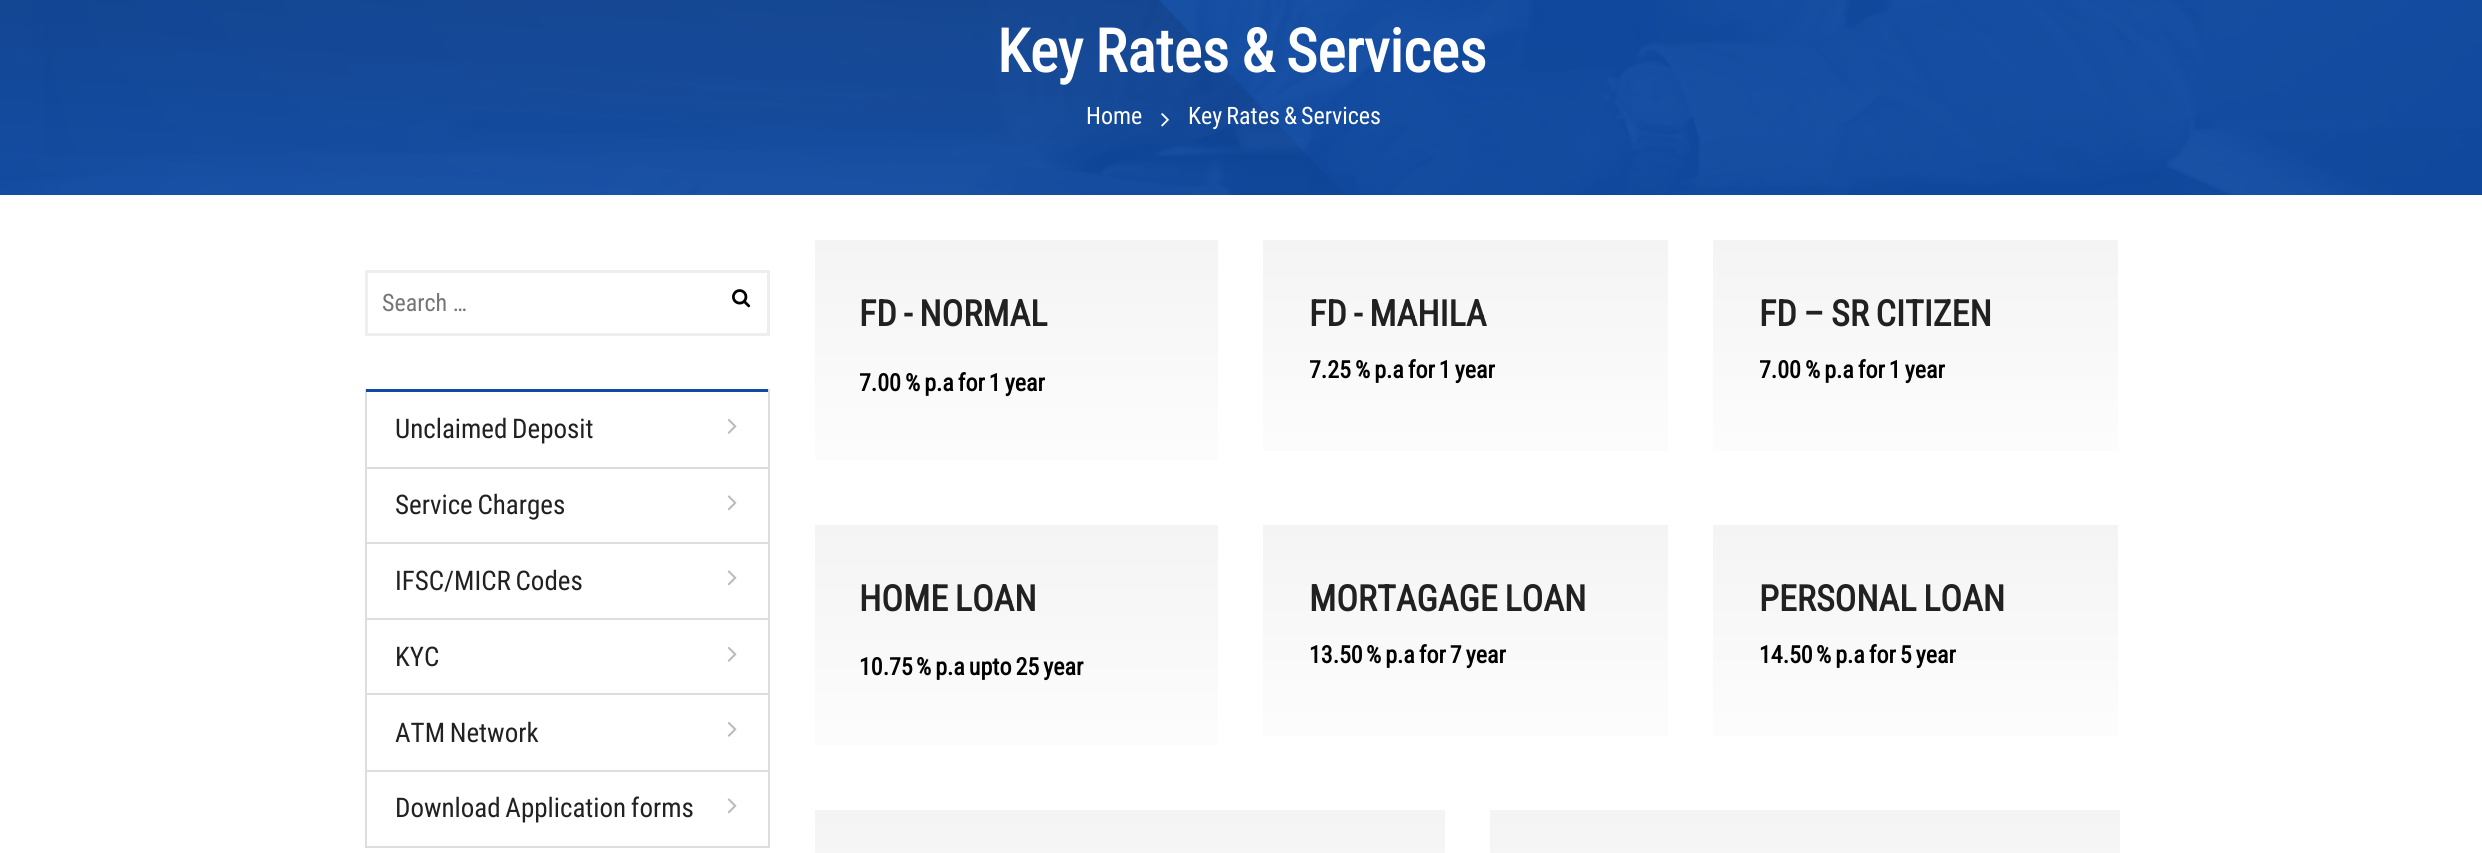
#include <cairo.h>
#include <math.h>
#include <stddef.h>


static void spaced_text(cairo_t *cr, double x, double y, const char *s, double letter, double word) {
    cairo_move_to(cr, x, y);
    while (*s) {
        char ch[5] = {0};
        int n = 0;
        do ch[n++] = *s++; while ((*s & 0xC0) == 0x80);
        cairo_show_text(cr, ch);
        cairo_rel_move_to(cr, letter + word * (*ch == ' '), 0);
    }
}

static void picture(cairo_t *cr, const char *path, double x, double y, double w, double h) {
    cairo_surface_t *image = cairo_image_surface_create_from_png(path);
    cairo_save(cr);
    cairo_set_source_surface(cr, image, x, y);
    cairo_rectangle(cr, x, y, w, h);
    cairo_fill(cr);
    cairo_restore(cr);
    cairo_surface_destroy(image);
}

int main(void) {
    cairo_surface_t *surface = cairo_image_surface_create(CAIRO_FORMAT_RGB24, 2482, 853);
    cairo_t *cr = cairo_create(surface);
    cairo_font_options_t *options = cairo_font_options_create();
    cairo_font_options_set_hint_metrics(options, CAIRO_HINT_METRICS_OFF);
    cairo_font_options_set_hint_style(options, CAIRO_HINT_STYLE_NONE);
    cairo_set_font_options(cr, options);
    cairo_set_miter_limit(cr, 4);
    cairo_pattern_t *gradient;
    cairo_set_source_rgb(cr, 1, 1, 1);
    cairo_paint(cr);
    picture(cr, "img1.png", 0, 0, 2482, 195);
    picture(cr, "img2.png", 0, 0, 1343, 195);
    cairo_select_font_face(cr, "Roboto Condensed", CAIRO_FONT_SLANT_NORMAL, CAIRO_FONT_WEIGHT_BOLD);
    cairo_set_font_size(cr, 60);
    cairo_set_source_rgb(cr, 1, 1, 1);
    spaced_text(cr, 997, 72, "Key Rates & Services", 0, -1.5);
    cairo_select_font_face(cr, "Roboto Condensed", CAIRO_FONT_SLANT_NORMAL, CAIRO_FONT_WEIGHT_NORMAL);
    cairo_set_font_size(cr, 24);
    cairo_move_to(cr, 1086, 124);
    cairo_show_text(cr, "Home");
    picture(cr, "img3.png", 1161, 113, 8, 14);
    spaced_text(cr, 1188, 124, "Key Rates & Services", 0, -1.5);
    cairo_rectangle(cr, 366.5, 271.5, 402, 63);
    cairo_set_source_rgb(cr, 0.933, 0.933, 0.933);
    cairo_set_line_width(cr, 3);
    cairo_stroke(cr);
    cairo_set_source_rgb(cr, 0.459, 0.459, 0.459);
    cairo_move_to(cr, 382, 311);
    cairo_show_text(cr, "Search …");
    picture(cr, "img4.png", 732, 289, 19, 19);
    cairo_set_source_rgb(cr, 0.867, 0.867, 0.867);
    cairo_rectangle(cr, 768, 389, 2, 459);
    cairo_fill(cr);
    cairo_rectangle(cr, 365, 389, 2, 459);
    cairo_fill(cr);
    cairo_set_source_rgb(cr, 0.059, 0.29, 0.639);
    cairo_rectangle(cr, 366, 389, 402, 3);
    cairo_fill(cr);
    cairo_set_source_rgb(cr, 0.867, 0.867, 0.867);
    cairo_rectangle(cr, 366, 467, 402, 2);
    cairo_fill(cr);
    cairo_set_font_size(cr, 27);
    cairo_set_source_rgb(cr, 0.129, 0.129, 0.129);
    spaced_text(cr, 395, 438, "Unclaimed Deposit", 0, -1.5);
    picture(cr, "img5.png", 727, 419, 10, 15);
    cairo_set_source_rgb(cr, 0.867, 0.867, 0.867);
    cairo_rectangle(cr, 366, 542, 402, 2);
    cairo_fill(cr);
    cairo_set_source_rgb(cr, 0.129, 0.129, 0.129);
    spaced_text(cr, 395, 514, "Service Charges", 0, -1.5);
    picture(cr, "img6.png", 727, 495, 10, 16);
    cairo_set_source_rgb(cr, 0.867, 0.867, 0.867);
    cairo_rectangle(cr, 366, 618, 402, 2);
    cairo_fill(cr);
    cairo_set_source_rgb(cr, 0.129, 0.129, 0.129);
    spaced_text(cr, 395, 590, "IFSC/MICR Codes", 0, -1.5);
    picture(cr, "img6.png", 727, 570, 10, 16);
    cairo_set_source_rgb(cr, 0.867, 0.867, 0.867);
    cairo_rectangle(cr, 366, 693, 402, 2);
    cairo_fill(cr);
    cairo_set_source_rgb(cr, 0.129, 0.129, 0.129);
    cairo_move_to(cr, 395, 666);
    cairo_show_text(cr, "KYC");
    picture(cr, "img5.png", 727, 647, 10, 15);
    cairo_set_source_rgb(cr, 0.867, 0.867, 0.867);
    cairo_rectangle(cr, 366, 770, 402, 2);
    cairo_fill(cr);
    cairo_set_source_rgb(cr, 0.129, 0.129, 0.129);
    spaced_text(cr, 395, 742, "ATM Network", 0, -1.5);
    picture(cr, "img5.png", 727, 722, 10, 15);
    cairo_set_source_rgb(cr, 0.867, 0.867, 0.867);
    cairo_rectangle(cr, 366, 846, 402, 2);
    cairo_fill(cr);
    cairo_set_source_rgb(cr, 0.129, 0.129, 0.129);
    spaced_text(cr, 395, 817, "Download Application forms", 0, -1.5);
    picture(cr, "img6.png", 727, 798, 10, 16);
    gradient = cairo_pattern_create_linear(1016, 240, 1016, 525);
    cairo_pattern_add_color_stop_rgba(gradient, 0, 0.957, 0.957, 0.957, 1);
    cairo_pattern_add_color_stop_rgba(gradient, 1, 1, 1, 1, 1);
    cairo_set_source(cr, gradient);
    cairo_pattern_destroy(gradient);
    cairo_rectangle(cr, 815, 240, 403, 220);
    cairo_fill(cr);
    cairo_select_font_face(cr, "Roboto Condensed", CAIRO_FONT_SLANT_NORMAL, CAIRO_FONT_WEIGHT_BOLD);
    cairo_set_font_size(cr, 36);
    cairo_set_source_rgb(cr, 0.129, 0.129, 0.129);
    spaced_text(cr, 859, 326, "FD - NORMAL", 0, -1.5);
    cairo_set_font_size(cr, 24);
    cairo_set_source_rgb(cr, 0, 0, 0);
    cairo_move_to(cr, 859, 391);
    cairo_show_text(cr, "7.00");
    spaced_text(cr, 905, 391, "% p.a for 1 year", 0, -1.5);
    gradient = cairo_pattern_create_linear(1466, 240, 1466, 513);
    cairo_pattern_add_color_stop_rgba(gradient, 0, 0.957, 0.957, 0.957, 1);
    cairo_pattern_add_color_stop_rgba(gradient, 1, 1, 1, 1, 1);
    cairo_set_source(cr, gradient);
    cairo_pattern_destroy(gradient);
    cairo_rectangle(cr, 1263, 240, 405, 211);
    cairo_fill(cr);
    cairo_set_font_size(cr, 36);
    cairo_set_source_rgb(cr, 0.129, 0.129, 0.129);
    spaced_text(cr, 1309, 326, "FD - MAHILA", 0, -1.5);
    cairo_set_font_size(cr, 24);
    cairo_set_source_rgb(cr, 0, 0, 0);
    cairo_move_to(cr, 1309, 378);
    cairo_show_text(cr, "7.25");
    spaced_text(cr, 1355, 378, "% p.a for 1 year", 0, -1.5);
    gradient = cairo_pattern_create_linear(1916, 240, 1916, 513);
    cairo_pattern_add_color_stop_rgba(gradient, 0, 0.957, 0.957, 0.957, 1);
    cairo_pattern_add_color_stop_rgba(gradient, 1, 1, 1, 1, 1);
    cairo_set_source(cr, gradient);
    cairo_pattern_destroy(gradient);
    cairo_rectangle(cr, 1713, 240, 405, 211);
    cairo_fill(cr);
    cairo_set_font_size(cr, 36);
    cairo_set_source_rgb(cr, 0.129, 0.129, 0.129);
    spaced_text(cr, 1759, 326, "FD – SR CITIZEN", 0, -1.5);
    cairo_set_font_size(cr, 24);
    cairo_set_source_rgb(cr, 0, 0, 0);
    cairo_move_to(cr, 1759, 378);
    cairo_show_text(cr, "7.00");
    spaced_text(cr, 1805, 378, "% p.a for 1 year", 0, -1.5);
    gradient = cairo_pattern_create_linear(1016, 525, 1016, 810);
    cairo_pattern_add_color_stop_rgba(gradient, 0, 0.957, 0.957, 0.957, 1);
    cairo_pattern_add_color_stop_rgba(gradient, 1, 1, 1, 1, 1);
    cairo_set_source(cr, gradient);
    cairo_pattern_destroy(gradient);
    cairo_rectangle(cr, 815, 525, 403, 220);
    cairo_fill(cr);
    cairo_set_font_size(cr, 36);
    cairo_set_source_rgb(cr, 0.129, 0.129, 0.129);
    spaced_text(cr, 859, 611, "HOME LOAN", 0, -1.5);
    cairo_set_font_size(cr, 24);
    cairo_set_source_rgb(cr, 0, 0, 0);
    cairo_move_to(cr, 859, 675);
    cairo_show_text(cr, "10.75");
    spaced_text(cr, 916, 675, "% p.a upto 25 year", 0, -1.5);
    gradient = cairo_pattern_create_linear(1466, 525, 1466, 798);
    cairo_pattern_add_color_stop_rgba(gradient, 0, 0.957, 0.957, 0.957, 1);
    cairo_pattern_add_color_stop_rgba(gradient, 1, 1, 1, 1, 1);
    cairo_set_source(cr, gradient);
    cairo_pattern_destroy(gradient);
    cairo_rectangle(cr, 1263, 525, 405, 211);
    cairo_fill(cr);
    cairo_set_font_size(cr, 36);
    cairo_set_source_rgb(cr, 0.129, 0.129, 0.129);
    spaced_text(cr, 1309, 611, "MORTAGAGE LOAN", 0, -1.5);
    cairo_set_font_size(cr, 24);
    cairo_set_source_rgb(cr, 0, 0, 0);
    cairo_move_to(cr, 1309, 663);
    cairo_show_text(cr, "13.50");
    spaced_text(cr, 1366, 663, "% p.a for 7 year", 0, -1.5);
    gradient = cairo_pattern_create_linear(1916, 525, 1916, 798);
    cairo_pattern_add_color_stop_rgba(gradient, 0, 0.957, 0.957, 0.957, 1);
    cairo_pattern_add_color_stop_rgba(gradient, 1, 1, 1, 1, 1);
    cairo_set_source(cr, gradient);
    cairo_pattern_destroy(gradient);
    cairo_rectangle(cr, 1713, 525, 405, 211);
    cairo_fill(cr);
    cairo_set_font_size(cr, 36);
    cairo_set_source_rgb(cr, 0.129, 0.129, 0.129);
    spaced_text(cr, 1759, 611, "PERSONAL LOAN", 0, -1.5);
    cairo_set_font_size(cr, 24);
    cairo_set_source_rgb(cr, 0, 0, 0);
    cairo_move_to(cr, 1759, 663);
    cairo_show_text(cr, "14.50");
    spaced_text(cr, 1816, 663, "% p.a for 5 year", 0, -1.5);
    gradient = cairo_pattern_create_linear(1130, 810, 1130, 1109);
    cairo_pattern_add_color_stop_rgba(gradient, 0, 0.957, 0.957, 0.957, 1);
    cairo_pattern_add_color_stop_rgba(gradient, 1, 1, 1, 1, 1);
    cairo_set_source(cr, gradient);
    cairo_pattern_destroy(gradient);
    cairo_rectangle(cr, 815, 810, 630, 43);
    cairo_fill(cr);
    gradient = cairo_pattern_create_linear(1805, 810, 1805, 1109);
    cairo_pattern_add_color_stop_rgba(gradient, 0, 0.957, 0.957, 0.957, 1);
    cairo_pattern_add_color_stop_rgba(gradient, 1, 1, 1, 1, 1);
    cairo_set_source(cr, gradient);
    cairo_pattern_destroy(gradient);
    cairo_rectangle(cr, 1490, 810, 630, 43);
    cairo_fill(cr);
    cairo_surface_write_to_png(surface, "page.png");
    cairo_font_options_destroy(options);
    cairo_destroy(cr);
    cairo_surface_destroy(surface);
    return 0;
}
